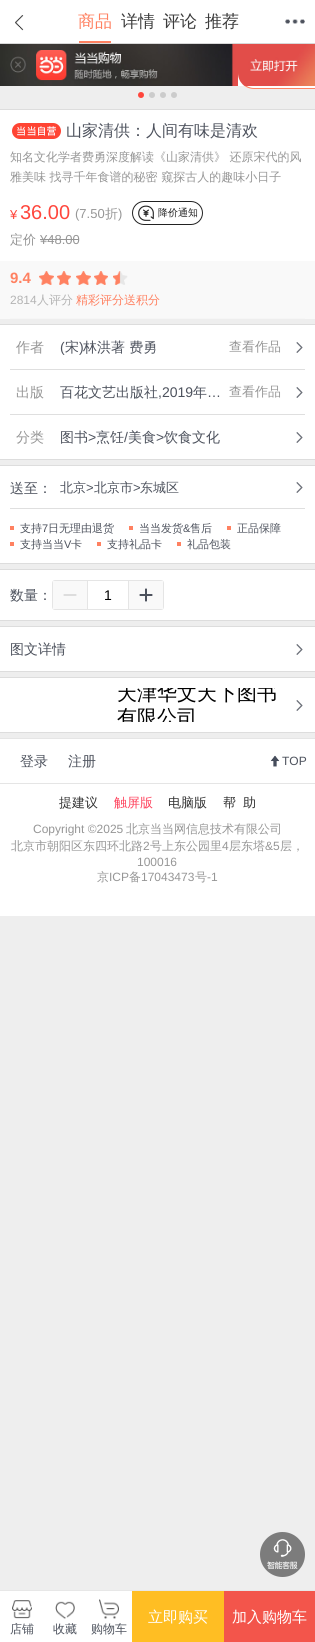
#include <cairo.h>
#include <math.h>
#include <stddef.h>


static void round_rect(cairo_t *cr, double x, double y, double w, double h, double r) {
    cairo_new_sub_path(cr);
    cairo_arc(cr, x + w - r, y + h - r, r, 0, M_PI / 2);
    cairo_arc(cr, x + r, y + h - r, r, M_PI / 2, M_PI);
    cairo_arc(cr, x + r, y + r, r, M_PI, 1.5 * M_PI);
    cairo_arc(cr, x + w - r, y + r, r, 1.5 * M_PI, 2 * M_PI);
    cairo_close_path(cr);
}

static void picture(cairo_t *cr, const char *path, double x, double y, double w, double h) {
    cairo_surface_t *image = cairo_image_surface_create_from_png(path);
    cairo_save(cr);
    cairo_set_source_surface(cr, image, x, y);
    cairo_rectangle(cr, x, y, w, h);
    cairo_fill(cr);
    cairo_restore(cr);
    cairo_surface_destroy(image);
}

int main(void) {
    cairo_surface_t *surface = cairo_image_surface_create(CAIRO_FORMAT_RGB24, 315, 1642);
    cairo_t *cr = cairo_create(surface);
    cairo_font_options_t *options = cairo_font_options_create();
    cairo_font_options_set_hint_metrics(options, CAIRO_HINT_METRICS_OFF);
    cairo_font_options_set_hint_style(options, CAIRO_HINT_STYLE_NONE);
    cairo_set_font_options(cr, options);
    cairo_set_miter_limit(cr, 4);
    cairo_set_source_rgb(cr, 0.933, 0.933, 0.933);
    cairo_paint(cr);
    cairo_set_source_rgb(cr, 1, 1, 1);
    cairo_rectangle(cr, 0, 0, 315, 43);
    cairo_fill(cr);
    picture(cr, "img1.png", 15, 15, 9, 16);
    cairo_set_source_rgb(cr, 0.847, 0.847, 0.847);
    cairo_rectangle(cr, 0, 43, 315, 1);
    cairo_fill(cr);
    cairo_set_source_rgb(cr, 1, 0.506, 0.38);
    cairo_rectangle(cr, 79, 41, 32, 2);
    cairo_fill(cr);
    cairo_select_font_face(cr, "WenQuanYi Zen Hei Medium", CAIRO_FONT_SLANT_NORMAL, CAIRO_FONT_WEIGHT_NORMAL);
    cairo_set_font_size(cr, 17);
    cairo_move_to(cr, 78, 27);
    cairo_show_text(cr, "商品");
    cairo_set_source_rgb(cr, 0.235, 0.235, 0.235);
    cairo_move_to(cr, 121, 27);
    cairo_show_text(cr, "详情");
    cairo_move_to(cr, 163, 27);
    cairo_show_text(cr, "评论");
    cairo_move_to(cr, 205, 27);
    cairo_show_text(cr, "推荐");
    picture(cr, "img2.png", 285, 19, 20, 5);
    picture(cr, "img3.png", 0, 44, 315, 42);
    cairo_set_source_rgb(cr, 1, 1, 1);
    cairo_new_path(cr);
    cairo_move_to(cr, 238, 86);
    cairo_line_to(cr, 315, 86);
    cairo_line_to(cr, 315, 89);
    cairo_line_to(cr, 254, 89);
    cairo_curve_to(cr, 245, 89, 238, 82, 238, 73);
    cairo_close_path(cr);
    cairo_fill(cr);
    cairo_save(cr);
    cairo_rectangle(cr, 0, 86, 315, 23);
    cairo_clip(cr);
    cairo_set_source_rgb(cr, 1, 0.506, 0.38);
    cairo_set_fill_rule(cr, CAIRO_FILL_RULE_EVEN_ODD);
    cairo_new_path(cr);
    cairo_move_to(cr, 254, 57);
    cairo_line_to(cr, 315, 57);
    cairo_line_to(cr, 315, 89);
    cairo_line_to(cr, 254, 89);
    cairo_curve_to(cr, 245, 89, 238, 82, 238, 73);
    cairo_curve_to(cr, 238, 64, 245, 57, 254, 57);
    cairo_close_path(cr);
    cairo_move_to(cr, 254, 58);
    cairo_line_to(cr, 315, 58);
    cairo_line_to(cr, 315, 88);
    cairo_line_to(cr, 254, 88);
    cairo_curve_to(cr, 246, 88, 239, 81, 239, 73);
    cairo_curve_to(cr, 239, 65, 246, 58, 254, 58);
    cairo_close_path(cr);
    cairo_fill(cr);
    cairo_restore(cr);
    cairo_set_source_rgb(cr, 1, 0.275, 0.235);
    cairo_arc(cr, 141, 95, 3, 0, 2 * M_PI);
    cairo_fill(cr);
    cairo_set_source_rgb(cr, 0.8, 0.8, 0.8);
    cairo_arc(cr, 152, 95, 3, 0, 2 * M_PI);
    cairo_fill(cr);
    cairo_arc(cr, 163, 95, 3, 0, 2 * M_PI);
    cairo_fill(cr);
    cairo_arc(cr, 174, 95, 3, 0, 2 * M_PI);
    cairo_fill(cr);
    cairo_set_source_rgb(cr, 1, 1, 1);
    cairo_rectangle(cr, 0, 110, 315, 151);
    cairo_fill(cr);
    cairo_set_source_rgb(cr, 0.867, 0.867, 0.867);
    cairo_rectangle(cr, 0, 109, 315, 1);
    cairo_fill(cr);
    picture(cr, "img4.png", 12, 123, 49, 16);
    cairo_set_font_size(cr, 16);
    cairo_set_source_rgb(cr, 0.302, 0.322, 0.365);
    cairo_move_to(cr, 66, 136);
    cairo_show_text(cr, "山家清供：人间有味是清欢");
    cairo_set_font_size(cr, 12);
    cairo_set_source_rgb(cr, 0.588, 0.588, 0.588);
    cairo_move_to(cr, 10, 161);
    cairo_show_text(cr, "知名文化学者费勇深度解读《山家清供》 还原宋代的风");
    cairo_move_to(cr, 10, 181);
    cairo_show_text(cr, "雅美味 找寻千年食谱的秘密 窥探古人的趣味小日子");
    cairo_select_font_face(cr, "Liberation Sans", CAIRO_FONT_SLANT_NORMAL, CAIRO_FONT_WEIGHT_NORMAL);
    cairo_set_font_size(cr, 13);
    cairo_set_source_rgb(cr, 1, 0.275, 0.235);
    cairo_move_to(cr, 10, 219);
    cairo_show_text(cr, "¥");
    cairo_set_font_size(cr, 20);
    cairo_move_to(cr, 20, 219);
    cairo_show_text(cr, "36.00");
    cairo_set_font_size(cr, 13);
    cairo_set_source_rgb(cr, 0.588, 0.588, 0.588);
    cairo_move_to(cr, 75, 218);
    cairo_show_text(cr, "(7.50");
    cairo_select_font_face(cr, "WenQuanYi Zen Hei Medium", CAIRO_FONT_SLANT_NORMAL, CAIRO_FONT_WEIGHT_NORMAL);
    cairo_move_to(cr, 105, 218);
    cairo_show_text(cr, "折");
    cairo_select_font_face(cr, "Liberation Sans", CAIRO_FONT_SLANT_NORMAL, CAIRO_FONT_WEIGHT_NORMAL);
    cairo_move_to(cr, 118, 218);
    cairo_show_text(cr, ")");
    round_rect(cr, 132.5, 201.5, 70, 23, 11.5);
    cairo_set_source_rgb(cr, 0.133, 0.133, 0.133);
    cairo_set_line_width(cr, 1);
    cairo_stroke(cr);
    picture(cr, "img5.png", 138, 205, 16, 16);
    cairo_select_font_face(cr, "WenQuanYi Zen Hei Medium", CAIRO_FONT_SLANT_NORMAL, CAIRO_FONT_WEIGHT_NORMAL);
    cairo_set_font_size(cr, 10);
    cairo_move_to(cr, 158, 216);
    cairo_show_text(cr, "降价通知");
    cairo_set_font_size(cr, 13);
    cairo_set_source_rgb(cr, 0.588, 0.588, 0.588);
    cairo_move_to(cr, 10, 244);
    cairo_show_text(cr, "定价");
    cairo_select_font_face(cr, "Liberation Sans", CAIRO_FONT_SLANT_NORMAL, CAIRO_FONT_WEIGHT_NORMAL);
    cairo_move_to(cr, 40, 244);
    cairo_show_text(cr, "¥48.00");
    cairo_rectangle(cr, 40, 239, 39, 1);
    cairo_fill(cr);
    cairo_set_source_rgb(cr, 0.973, 0.973, 0.973);
    cairo_rectangle(cr, 0, 261, 315, 58);
    cairo_fill(cr);
    cairo_set_source_rgb(cr, 0.961, 0.961, 0.961);
    cairo_rectangle(cr, 10, 318, 295, 1);
    cairo_fill(cr);
    cairo_select_font_face(cr, "Liberation Sans", CAIRO_FONT_SLANT_NORMAL, CAIRO_FONT_WEIGHT_BOLD);
    cairo_set_font_size(cr, 15);
    cairo_set_source_rgb(cr, 1, 0.506, 0.38);
    cairo_move_to(cr, 10, 283);
    cairo_show_text(cr, "9.4");
    picture(cr, "img6.png", 39, 271, 15, 14);
    picture(cr, "img7.png", 57, 271, 14, 14);
    picture(cr, "img6.png", 76, 271, 15, 14);
    picture(cr, "img7.png", 94, 271, 14, 14);
    picture(cr, "img8.png", 113, 271, 15, 14);
    cairo_select_font_face(cr, "Liberation Sans", CAIRO_FONT_SLANT_NORMAL, CAIRO_FONT_WEIGHT_NORMAL);
    cairo_set_font_size(cr, 12);
    cairo_set_source_rgb(cr, 0.706, 0.706, 0.706);
    cairo_move_to(cr, 10, 304);
    cairo_show_text(cr, "2814");
    cairo_select_font_face(cr, "WenQuanYi Zen Hei Medium", CAIRO_FONT_SLANT_NORMAL, CAIRO_FONT_WEIGHT_NORMAL);
    cairo_move_to(cr, 37, 304);
    cairo_show_text(cr, "人评分");
    cairo_set_source_rgb(cr, 1, 0.506, 0.38);
    cairo_move_to(cr, 76, 304);
    cairo_show_text(cr, "精彩评分送积分");
    cairo_set_source_rgb(cr, 1, 1, 1);
    cairo_rectangle(cr, 0, 325, 315, 134);
    cairo_fill(cr);
    cairo_set_source_rgb(cr, 0.867, 0.867, 0.867);
    cairo_rectangle(cr, 0, 324, 315, 1);
    cairo_fill(cr);
    cairo_rectangle(cr, 0, 459, 315, 1);
    cairo_fill(cr);
    cairo_set_source_rgb(cr, 0.875, 0.875, 0.875);
    cairo_rectangle(cr, 10, 369, 295, 1);
    cairo_fill(cr);
    picture(cr, "img9.png", 296, 342, 7, 11);
    cairo_set_font_size(cr, 14);
    cairo_set_source_rgb(cr, 0.588, 0.588, 0.588);
    cairo_move_to(cr, 16, 352);
    cairo_show_text(cr, "作者");
    cairo_select_font_face(cr, "Liberation Sans", CAIRO_FONT_SLANT_NORMAL, CAIRO_FONT_WEIGHT_NORMAL);
    cairo_set_source_rgb(cr, 0.302, 0.322, 0.365);
    cairo_move_to(cr, 60, 352);
    cairo_show_text(cr, "(");
    cairo_select_font_face(cr, "WenQuanYi Zen Hei Medium", CAIRO_FONT_SLANT_NORMAL, CAIRO_FONT_WEIGHT_NORMAL);
    cairo_move_to(cr, 65, 352);
    cairo_show_text(cr, "宋");
    cairo_select_font_face(cr, "Liberation Sans", CAIRO_FONT_SLANT_NORMAL, CAIRO_FONT_WEIGHT_NORMAL);
    cairo_move_to(cr, 79, 352);
    cairo_show_text(cr, ")");
    cairo_select_font_face(cr, "WenQuanYi Zen Hei Medium", CAIRO_FONT_SLANT_NORMAL, CAIRO_FONT_WEIGHT_NORMAL);
    cairo_move_to(cr, 83, 352);
    cairo_show_text(cr, "林洪著 费勇");
    cairo_set_font_size(cr, 13);
    cairo_set_source_rgb(cr, 0.588, 0.588, 0.588);
    cairo_move_to(cr, 229, 351);
    cairo_show_text(cr, "查看作品");
    cairo_set_source_rgb(cr, 0.875, 0.875, 0.875);
    cairo_rectangle(cr, 10, 414, 295, 1);
    cairo_fill(cr);
    picture(cr, "img9.png", 296, 387, 7, 11);
    cairo_set_font_size(cr, 14);
    cairo_set_source_rgb(cr, 0.588, 0.588, 0.588);
    cairo_move_to(cr, 16, 397);
    cairo_show_text(cr, "出版");
    cairo_set_source_rgb(cr, 0.302, 0.322, 0.365);
    cairo_move_to(cr, 60, 397);
    cairo_show_text(cr, "百花文艺出版社");
    cairo_select_font_face(cr, "Liberation Sans", CAIRO_FONT_SLANT_NORMAL, CAIRO_FONT_WEIGHT_NORMAL);
    cairo_move_to(cr, 158, 397);
    cairo_show_text(cr, ",2019");
    cairo_select_font_face(cr, "WenQuanYi Zen Hei Medium", CAIRO_FONT_SLANT_NORMAL, CAIRO_FONT_WEIGHT_NORMAL);
    cairo_move_to(cr, 193, 397);
    cairo_show_text(cr, "年");
    cairo_select_font_face(cr, "Liberation Sans", CAIRO_FONT_SLANT_NORMAL, CAIRO_FONT_WEIGHT_NORMAL);
    cairo_move_to(cr, 207, 397);
    cairo_show_text(cr, "…");
    cairo_select_font_face(cr, "WenQuanYi Zen Hei Medium", CAIRO_FONT_SLANT_NORMAL, CAIRO_FONT_WEIGHT_NORMAL);
    cairo_set_font_size(cr, 13);
    cairo_set_source_rgb(cr, 0.588, 0.588, 0.588);
    cairo_move_to(cr, 229, 396);
    cairo_show_text(cr, "查看作品");
    picture(cr, "img9.png", 296, 432, 7, 11);
    cairo_set_font_size(cr, 14);
    cairo_move_to(cr, 16, 442);
    cairo_show_text(cr, "分类");
    cairo_set_source_rgb(cr, 0.302, 0.322, 0.365);
    cairo_move_to(cr, 60, 442);
    cairo_show_text(cr, "图书");
    cairo_select_font_face(cr, "Liberation Sans", CAIRO_FONT_SLANT_NORMAL, CAIRO_FONT_WEIGHT_NORMAL);
    cairo_move_to(cr, 88, 442);
    cairo_show_text(cr, ">");
    cairo_select_font_face(cr, "WenQuanYi Zen Hei Medium", CAIRO_FONT_SLANT_NORMAL, CAIRO_FONT_WEIGHT_NORMAL);
    cairo_move_to(cr, 96, 442);
    cairo_show_text(cr, "烹饪");
    cairo_select_font_face(cr, "Liberation Sans", CAIRO_FONT_SLANT_NORMAL, CAIRO_FONT_WEIGHT_NORMAL);
    cairo_move_to(cr, 124, 442);
    cairo_show_text(cr, "/");
    cairo_select_font_face(cr, "WenQuanYi Zen Hei Medium", CAIRO_FONT_SLANT_NORMAL, CAIRO_FONT_WEIGHT_NORMAL);
    cairo_move_to(cr, 128, 442);
    cairo_show_text(cr, "美食");
    cairo_select_font_face(cr, "Liberation Sans", CAIRO_FONT_SLANT_NORMAL, CAIRO_FONT_WEIGHT_NORMAL);
    cairo_move_to(cr, 156, 442);
    cairo_show_text(cr, ">");
    cairo_select_font_face(cr, "WenQuanYi Zen Hei Medium", CAIRO_FONT_SLANT_NORMAL, CAIRO_FONT_WEIGHT_NORMAL);
    cairo_move_to(cr, 164, 442);
    cairo_show_text(cr, "饮食文化");
    cairo_set_source_rgb(cr, 1, 1, 1);
    cairo_rectangle(cr, 0, 466, 315, 97);
    cairo_fill(cr);
    cairo_set_source_rgb(cr, 0.867, 0.867, 0.867);
    cairo_rectangle(cr, 0, 465, 315, 1);
    cairo_fill(cr);
    cairo_rectangle(cr, 0, 563, 315, 1);
    cairo_fill(cr);
    picture(cr, "img9.png", 296, 482, 7, 11);
    cairo_set_source_rgb(cr, 0.302, 0.322, 0.365);
    cairo_move_to(cr, 10, 493);
    cairo_show_text(cr, "送至：");
    cairo_set_font_size(cr, 13);
    cairo_move_to(cr, 60, 492);
    cairo_show_text(cr, "北京");
    cairo_select_font_face(cr, "Liberation Sans", CAIRO_FONT_SLANT_NORMAL, CAIRO_FONT_WEIGHT_NORMAL);
    cairo_move_to(cr, 86, 492);
    cairo_show_text(cr, ">");
    cairo_select_font_face(cr, "WenQuanYi Zen Hei Medium", CAIRO_FONT_SLANT_NORMAL, CAIRO_FONT_WEIGHT_NORMAL);
    cairo_move_to(cr, 94, 492);
    cairo_show_text(cr, "北京市");
    cairo_select_font_face(cr, "Liberation Sans", CAIRO_FONT_SLANT_NORMAL, CAIRO_FONT_WEIGHT_NORMAL);
    cairo_move_to(cr, 133, 492);
    cairo_show_text(cr, ">");
    cairo_select_font_face(cr, "WenQuanYi Zen Hei Medium", CAIRO_FONT_SLANT_NORMAL, CAIRO_FONT_WEIGHT_NORMAL);
    cairo_move_to(cr, 140, 492);
    cairo_show_text(cr, "东城区");
    cairo_set_source_rgb(cr, 0.875, 0.875, 0.875);
    cairo_rectangle(cr, 10, 508, 295, 1);
    cairo_fill(cr);
    cairo_set_source_rgb(cr, 1, 0.506, 0.38);
    cairo_rectangle(cr, 10, 526, 4, 4);
    cairo_fill(cr);
    cairo_set_font_size(cr, 11);
    cairo_set_source_rgb(cr, 0.302, 0.322, 0.365);
    cairo_move_to(cr, 20, 532);
    cairo_show_text(cr, "支持");
    cairo_select_font_face(cr, "Liberation Sans", CAIRO_FONT_SLANT_NORMAL, CAIRO_FONT_WEIGHT_NORMAL);
    cairo_move_to(cr, 42, 532);
    cairo_show_text(cr, "7");
    cairo_select_font_face(cr, "WenQuanYi Zen Hei Medium", CAIRO_FONT_SLANT_NORMAL, CAIRO_FONT_WEIGHT_NORMAL);
    cairo_move_to(cr, 48, 532);
    cairo_show_text(cr, "日无理由退货");
    cairo_set_source_rgb(cr, 1, 0.506, 0.38);
    cairo_rectangle(cr, 129, 526, 4, 4);
    cairo_fill(cr);
    cairo_set_source_rgb(cr, 0.302, 0.322, 0.365);
    cairo_move_to(cr, 139, 532);
    cairo_show_text(cr, "当当发货");
    cairo_select_font_face(cr, "Liberation Sans", CAIRO_FONT_SLANT_NORMAL, CAIRO_FONT_WEIGHT_NORMAL);
    cairo_move_to(cr, 183, 532);
    cairo_show_text(cr, "&");
    cairo_select_font_face(cr, "WenQuanYi Zen Hei Medium", CAIRO_FONT_SLANT_NORMAL, CAIRO_FONT_WEIGHT_NORMAL);
    cairo_move_to(cr, 190, 532);
    cairo_show_text(cr, "售后");
    cairo_set_source_rgb(cr, 1, 0.506, 0.38);
    cairo_rectangle(cr, 227, 526, 4, 4);
    cairo_fill(cr);
    cairo_set_source_rgb(cr, 0.302, 0.322, 0.365);
    cairo_move_to(cr, 237, 532);
    cairo_show_text(cr, "正品保障");
    cairo_set_source_rgb(cr, 1, 0.506, 0.38);
    cairo_rectangle(cr, 10, 542, 4, 4);
    cairo_fill(cr);
    cairo_set_source_rgb(cr, 0.302, 0.322, 0.365);
    cairo_move_to(cr, 20, 548);
    cairo_show_text(cr, "支持当当");
    cairo_select_font_face(cr, "Liberation Sans", CAIRO_FONT_SLANT_NORMAL, CAIRO_FONT_WEIGHT_NORMAL);
    cairo_move_to(cr, 64, 548);
    cairo_show_text(cr, "V");
    cairo_select_font_face(cr, "WenQuanYi Zen Hei Medium", CAIRO_FONT_SLANT_NORMAL, CAIRO_FONT_WEIGHT_NORMAL);
    cairo_move_to(cr, 71, 548);
    cairo_show_text(cr, "卡");
    cairo_set_source_rgb(cr, 1, 0.506, 0.38);
    cairo_rectangle(cr, 97, 542, 4, 4);
    cairo_fill(cr);
    cairo_set_source_rgb(cr, 0.302, 0.322, 0.365);
    cairo_move_to(cr, 107, 548);
    cairo_show_text(cr, "支持礼品卡");
    cairo_set_source_rgb(cr, 1, 0.506, 0.38);
    cairo_rectangle(cr, 177, 542, 4, 4);
    cairo_fill(cr);
    cairo_set_source_rgb(cr, 0.302, 0.322, 0.365);
    cairo_move_to(cr, 187, 548);
    cairo_show_text(cr, "礼品包装");
    cairo_set_source_rgb(cr, 1, 1, 1);
    cairo_rectangle(cr, 0, 570, 315, 50);
    cairo_fill(cr);
    cairo_set_source_rgb(cr, 0.867, 0.867, 0.867);
    cairo_rectangle(cr, 0, 569, 315, 1);
    cairo_fill(cr);
    cairo_rectangle(cr, 0, 620, 315, 1);
    cairo_fill(cr);
    cairo_set_font_size(cr, 14);
    cairo_set_source_rgb(cr, 0.302, 0.322, 0.365);
    cairo_move_to(cr, 10, 600);
    cairo_show_text(cr, "数量：");
    round_rect(cr, 52.5, 580.5, 111, 29, 2.5);
    cairo_set_source_rgb(cr, 0.898, 0.898, 0.898);
    cairo_stroke(cr);
    cairo_set_source_rgb(cr, 0.973, 0.973, 0.973);
    cairo_rectangle(cr, 53, 581, 34, 28);
    cairo_fill(cr);
    picture(cr, "img10.png", 63, 594, 14, 2);
    cairo_set_source_rgb(cr, 0.898, 0.898, 0.898);
    cairo_rectangle(cr, 87, 581, 1, 28);
    cairo_fill(cr);
    cairo_select_font_face(cr, "Liberation Sans", CAIRO_FONT_SLANT_NORMAL, CAIRO_FONT_WEIGHT_NORMAL);
    cairo_set_source_rgb(cr, 0, 0, 0);
    cairo_move_to(cr, 104, 600);
    cairo_show_text(cr, "1");
    cairo_set_source_rgb(cr, 0.973, 0.973, 0.973);
    cairo_rectangle(cr, 129, 581, 34, 28);
    cairo_fill(cr);
    picture(cr, "img11.png", 139, 588, 14, 14);
    cairo_set_source_rgb(cr, 0.898, 0.898, 0.898);
    cairo_rectangle(cr, 128, 581, 1, 28);
    cairo_fill(cr);
    cairo_set_source_rgb(cr, 1, 1, 1);
    cairo_rectangle(cr, 0, 627, 315, 44);
    cairo_fill(cr);
    cairo_set_source_rgb(cr, 0.867, 0.867, 0.867);
    cairo_rectangle(cr, 0, 626, 315, 1);
    cairo_fill(cr);
    cairo_rectangle(cr, 0, 671, 315, 1);
    cairo_fill(cr);
    picture(cr, "img9.png", 296, 644, 7, 11);
    cairo_select_font_face(cr, "WenQuanYi Zen Hei Medium", CAIRO_FONT_SLANT_NORMAL, CAIRO_FONT_WEIGHT_NORMAL);
    cairo_set_source_rgb(cr, 0.302, 0.322, 0.365);
    cairo_move_to(cr, 10, 654);
    cairo_show_text(cr, "图文详情");
    cairo_set_source_rgb(cr, 1, 1, 1);
    cairo_rectangle(cr, 0, 678, 315, 54);
    cairo_fill(cr);
    cairo_set_source_rgb(cr, 0.867, 0.867, 0.867);
    cairo_rectangle(cr, 0, 677, 315, 1);
    cairo_fill(cr);
    cairo_rectangle(cr, 0, 732, 315, 1);
    cairo_fill(cr);
    picture(cr, "img9.png", 296, 700, 7, 11);
    cairo_save(cr);
    cairo_rectangle(cr, 10, 688, 295, 34);
    cairo_clip(cr);
    cairo_set_font_size(cr, 20);
    cairo_set_source_rgb(cr, 0, 0, 0);
    cairo_move_to(cr, 117, 700);
    cairo_show_text(cr, "天津华文天下图书");
    cairo_move_to(cr, 117, 724);
    cairo_show_text(cr, "有限公司");
    cairo_restore(cr);
    cairo_set_source_rgb(cr, 1, 1, 1);
    cairo_rectangle(cr, 0, 739, 315, 177);
    cairo_fill(cr);
    cairo_set_source_rgb(cr, 0.898, 0.898, 0.898);
    cairo_rectangle(cr, 0, 738, 315, 1);
    cairo_fill(cr);
    cairo_rectangle(cr, 0, 783, 315, 1);
    cairo_fill(cr);
    cairo_set_source_rgb(cr, 0.302, 0.322, 0.365);
    cairo_move_to(cr, 20, 766);
    cairo_show_text(cr, "登录");
    cairo_move_to(cr, 68, 766);
    cairo_show_text(cr, "注册");
    picture(cr, "img12.png", 270, 755, 10, 12);
    cairo_select_font_face(cr, "Liberation Sans", CAIRO_FONT_SLANT_NORMAL, CAIRO_FONT_WEIGHT_NORMAL);
    cairo_set_font_size(cr, 12);
    cairo_move_to(cr, 282, 765);
    cairo_show_text(cr, "TOP");
    cairo_select_font_face(cr, "WenQuanYi Zen Hei Medium", CAIRO_FONT_SLANT_NORMAL, CAIRO_FONT_WEIGHT_NORMAL);
    cairo_set_font_size(cr, 13);
    cairo_set_source_rgb(cr, 0.196, 0.196, 0.196);
    cairo_move_to(cr, 59, 807);
    cairo_show_text(cr, "提建议");
    cairo_set_source_rgb(cr, 0.996, 0.263, 0.365);
    cairo_move_to(cr, 114, 807);
    cairo_show_text(cr, "触屏版");
    cairo_set_source_rgb(cr, 0.196, 0.196, 0.196);
    cairo_move_to(cr, 168, 807);
    cairo_show_text(cr, "电脑版");
    cairo_move_to(cr, 223, 807);
    cairo_show_text(cr, "帮");
    cairo_move_to(cr, 243, 807);
    cairo_show_text(cr, "助");
    cairo_select_font_face(cr, "Liberation Sans", CAIRO_FONT_SLANT_NORMAL, CAIRO_FONT_WEIGHT_NORMAL);
    cairo_set_font_size(cr, 12);
    cairo_set_source_rgb(cr, 0.588, 0.588, 0.588);
    cairo_move_to(cr, 33, 833);
    cairo_show_text(cr, "Copyright ©2025");
    cairo_select_font_face(cr, "WenQuanYi Zen Hei Medium", CAIRO_FONT_SLANT_NORMAL, CAIRO_FONT_WEIGHT_NORMAL);
    cairo_move_to(cr, 126, 833);
    cairo_show_text(cr, "北京当当网信息技术有限公司");
    cairo_move_to(cr, 11, 850);
    cairo_show_text(cr, "北京市朝阳区东四环北路");
    cairo_select_font_face(cr, "Liberation Sans", CAIRO_FONT_SLANT_NORMAL, CAIRO_FONT_WEIGHT_NORMAL);
    cairo_move_to(cr, 143, 850);
    cairo_show_text(cr, "2");
    cairo_select_font_face(cr, "WenQuanYi Zen Hei Medium", CAIRO_FONT_SLANT_NORMAL, CAIRO_FONT_WEIGHT_NORMAL);
    cairo_move_to(cr, 150, 850);
    cairo_show_text(cr, "号上东公园里");
    cairo_select_font_face(cr, "Liberation Sans", CAIRO_FONT_SLANT_NORMAL, CAIRO_FONT_WEIGHT_NORMAL);
    cairo_move_to(cr, 222, 850);
    cairo_show_text(cr, "4");
    cairo_select_font_face(cr, "WenQuanYi Zen Hei Medium", CAIRO_FONT_SLANT_NORMAL, CAIRO_FONT_WEIGHT_NORMAL);
    cairo_move_to(cr, 229, 850);
    cairo_show_text(cr, "层东塔");
    cairo_select_font_face(cr, "Liberation Sans", CAIRO_FONT_SLANT_NORMAL, CAIRO_FONT_WEIGHT_NORMAL);
    cairo_move_to(cr, 265, 850);
    cairo_show_text(cr, "&5");
    cairo_select_font_face(cr, "WenQuanYi Zen Hei Medium", CAIRO_FONT_SLANT_NORMAL, CAIRO_FONT_WEIGHT_NORMAL);
    cairo_move_to(cr, 280, 850);
    cairo_show_text(cr, "层，");
    cairo_select_font_face(cr, "Liberation Sans", CAIRO_FONT_SLANT_NORMAL, CAIRO_FONT_WEIGHT_NORMAL);
    cairo_move_to(cr, 137, 866);
    cairo_show_text(cr, "100016");
    cairo_select_font_face(cr, "WenQuanYi Zen Hei Medium", CAIRO_FONT_SLANT_NORMAL, CAIRO_FONT_WEIGHT_NORMAL);
    cairo_move_to(cr, 97, 881);
    cairo_show_text(cr, "京");
    cairo_select_font_face(cr, "Liberation Sans", CAIRO_FONT_SLANT_NORMAL, CAIRO_FONT_WEIGHT_NORMAL);
    cairo_move_to(cr, 109, 881);
    cairo_show_text(cr, "ICP");
    cairo_select_font_face(cr, "WenQuanYi Zen Hei Medium", CAIRO_FONT_SLANT_NORMAL, CAIRO_FONT_WEIGHT_NORMAL);
    cairo_move_to(cr, 129, 881);
    cairo_show_text(cr, "备");
    cairo_select_font_face(cr, "Liberation Sans", CAIRO_FONT_SLANT_NORMAL, CAIRO_FONT_WEIGHT_NORMAL);
    cairo_move_to(cr, 141, 881);
    cairo_show_text(cr, "17043473");
    cairo_select_font_face(cr, "WenQuanYi Zen Hei Medium", CAIRO_FONT_SLANT_NORMAL, CAIRO_FONT_WEIGHT_NORMAL);
    cairo_move_to(cr, 195, 881);
    cairo_show_text(cr, "号");
    cairo_select_font_face(cr, "Liberation Sans", CAIRO_FONT_SLANT_NORMAL, CAIRO_FONT_WEIGHT_NORMAL);
    cairo_move_to(cr, 207, 881);
    cairo_show_text(cr, "-1");
    picture(cr, "img13.png", 260, 1532, 45, 45);
    cairo_set_source_rgb(cr, 1, 1, 1);
    cairo_rectangle(cr, 0, 1591, 132, 51);
    cairo_fill(cr);
    cairo_set_source_rgb(cr, 0.906, 0.906, 0.906);
    cairo_rectangle(cr, 0, 1590, 315, 1);
    cairo_fill(cr);
    cairo_set_source_rgb(cr, 1, 0.745, 0.137);
    cairo_rectangle(cr, 132, 1591, 92, 51);
    cairo_fill(cr);
    cairo_select_font_face(cr, "WenQuanYi Zen Hei Medium", CAIRO_FONT_SLANT_NORMAL, CAIRO_FONT_WEIGHT_NORMAL);
    cairo_set_font_size(cr, 15);
    cairo_set_source_rgb(cr, 1, 1, 1);
    cairo_move_to(cr, 148, 1622);
    cairo_show_text(cr, "立即购买");
    cairo_set_source_rgb(cr, 0.953, 0.333, 0.294);
    cairo_rectangle(cr, 224, 1591, 91, 51);
    cairo_fill(cr);
    cairo_set_source_rgb(cr, 1, 1, 1);
    cairo_move_to(cr, 232, 1622);
    cairo_show_text(cr, "加入购物车");
    picture(cr, "img14.png", 12, 1600, 20, 19);
    cairo_set_font_size(cr, 12);
    cairo_set_source_rgb(cr, 0.302, 0.322, 0.365);
    cairo_move_to(cr, 10, 1633);
    cairo_show_text(cr, "店铺");
    picture(cr, "img15.png", 55, 1601, 20, 18);
    cairo_move_to(cr, 53, 1633);
    cairo_show_text(cr, "收藏");
    picture(cr, "img16.png", 99, 1599, 20, 20);
    cairo_move_to(cr, 91, 1633);
    cairo_show_text(cr, "购物车");
    cairo_surface_write_to_png(surface, "page.png");
    cairo_font_options_destroy(options);
    cairo_destroy(cr);
    cairo_surface_destroy(surface);
    return 0;
}
